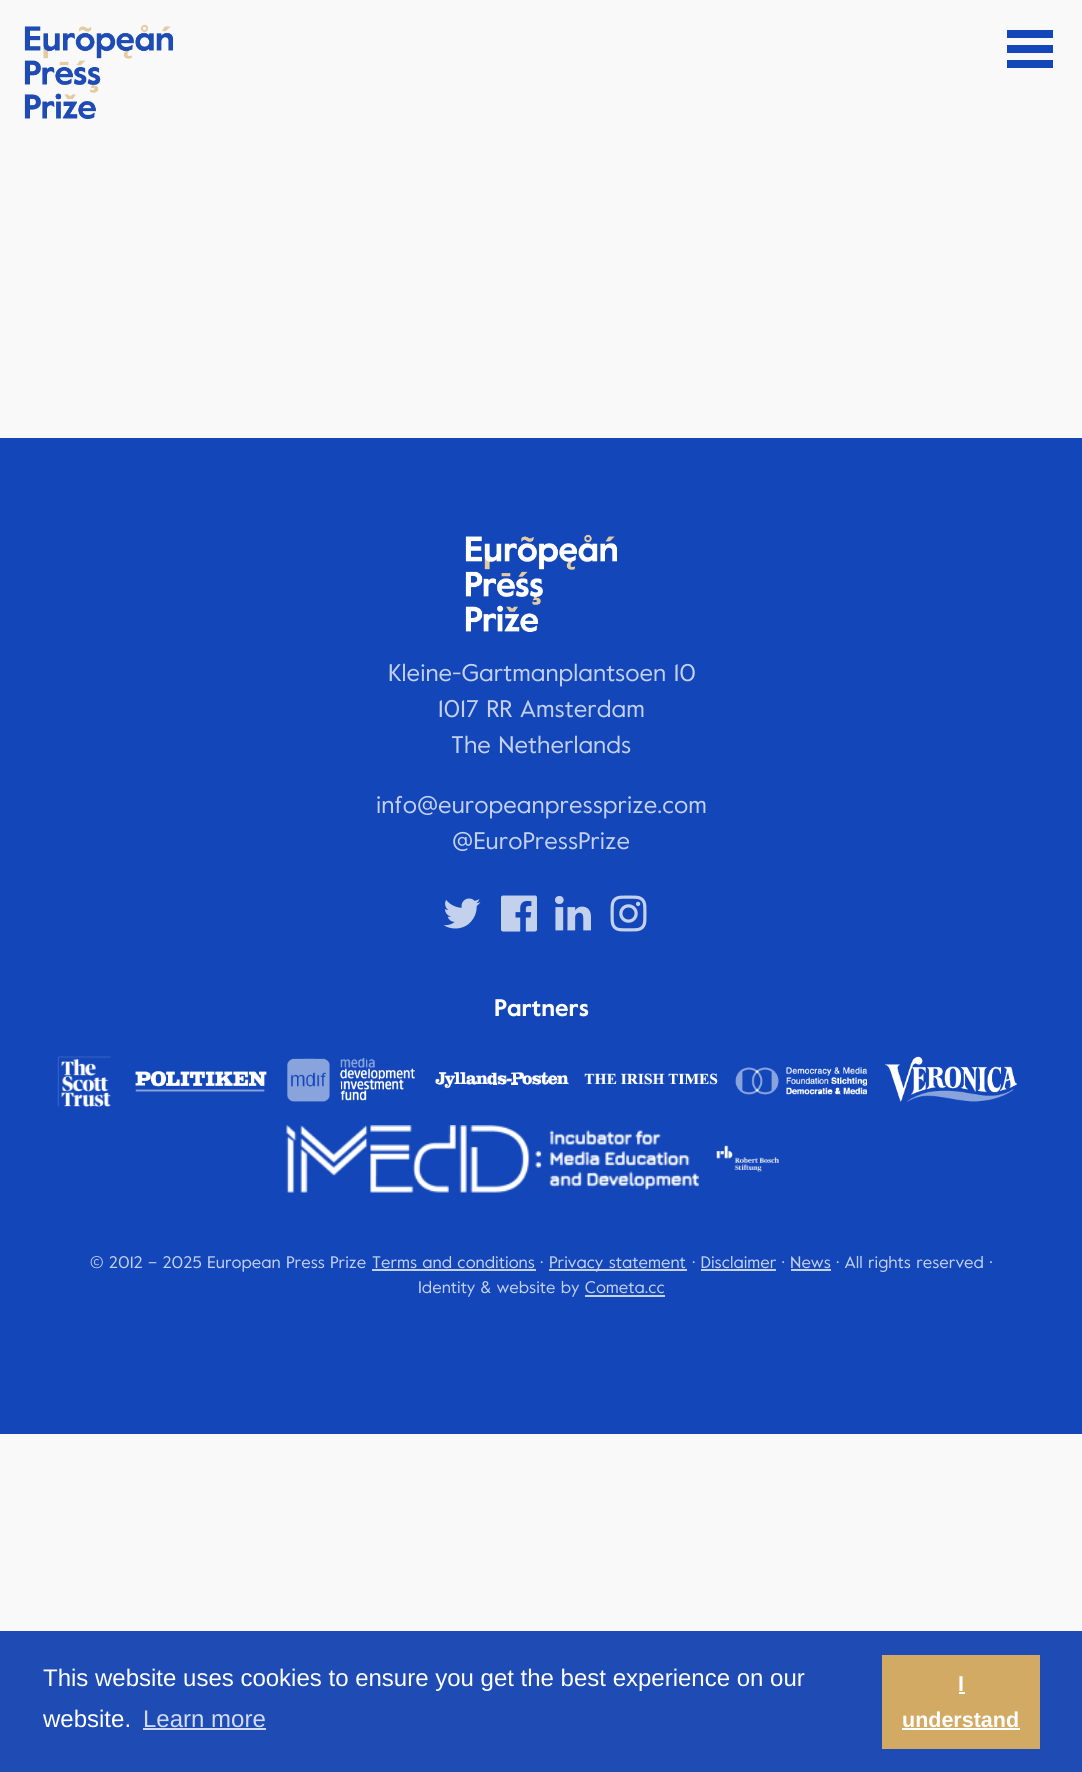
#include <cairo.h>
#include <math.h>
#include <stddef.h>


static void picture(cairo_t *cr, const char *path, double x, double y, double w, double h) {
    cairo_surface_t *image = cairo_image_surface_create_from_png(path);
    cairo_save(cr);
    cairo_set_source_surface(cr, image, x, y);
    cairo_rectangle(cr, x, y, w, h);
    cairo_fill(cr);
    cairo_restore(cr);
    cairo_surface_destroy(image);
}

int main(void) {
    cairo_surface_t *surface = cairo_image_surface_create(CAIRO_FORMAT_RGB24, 1082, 1772);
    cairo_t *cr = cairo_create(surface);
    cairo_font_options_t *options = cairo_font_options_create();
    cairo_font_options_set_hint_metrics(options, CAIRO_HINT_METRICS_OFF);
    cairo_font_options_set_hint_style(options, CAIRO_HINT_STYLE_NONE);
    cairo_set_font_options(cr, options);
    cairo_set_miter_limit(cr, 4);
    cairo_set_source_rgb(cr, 0.973, 0.973, 0.973);
    cairo_paint(cr);
    picture(cr, "img1.png", 24, 24, 149, 95);
    cairo_set_source_rgb(cr, 0.078, 0.275, 0.725);
    cairo_rectangle(cr, 1007, 45, 46, 8);
    cairo_fill(cr);
    cairo_rectangle(cr, 1007, 30, 46, 8);
    cairo_fill(cr);
    cairo_rectangle(cr, 1007, 60, 46, 8);
    cairo_fill(cr);
    cairo_rectangle(cr, 0, 438, 1082, 996);
    cairo_fill(cr);
    picture(cr, "img2.png", 465, 534, 152, 98);
    cairo_select_font_face(cr, "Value", CAIRO_FONT_SLANT_NORMAL, CAIRO_FONT_WEIGHT_NORMAL);
    cairo_set_font_size(cr, 24);
    cairo_set_source_rgb(cr, 0.769, 0.82, 0.933);
    cairo_move_to(cr, 388, 681);
    cairo_show_text(cr, "Kleine-Gartmanplantsoen 10");
    cairo_move_to(cr, 438, 717);
    cairo_show_text(cr, "1017 RR Amsterdam");
    cairo_move_to(cr, 451, 753);
    cairo_show_text(cr, "The Netherlands");
    cairo_move_to(cr, 376, 813);
    cairo_show_text(cr, "info@europeanpressprize.com");
    cairo_move_to(cr, 452, 849);
    cairo_show_text(cr, "@EuroPressPrize");
    picture(cr, "img3.png", 443, 898, 38, 31);
    picture(cr, "img4.png", 501, 895, 36, 37);
    picture(cr, "img5.png", 555, 896, 36, 35);
    picture(cr, "img6.png", 610, 895, 37, 37);
    cairo_select_font_face(cr, "Value", CAIRO_FONT_SLANT_NORMAL, CAIRO_FONT_WEIGHT_BOLD);
    cairo_set_source_rgb(cr, 1, 1, 1);
    cairo_move_to(cr, 494, 1016);
    cairo_show_text(cr, "Partners");
    picture(cr, "img7.png", 57, 1056, 54, 51);
    picture(cr, "img8.png", 135, 1071, 132, 21);
    picture(cr, "img9.png", 287, 1058, 128, 44);
    picture(cr, "img10.png", 435, 1072, 134, 17);
    picture(cr, "img11.png", 584, 1073, 134, 12);
    picture(cr, "img12.png", 735, 1067, 132, 28);
    picture(cr, "img13.png", 885, 1056, 132, 46);
    picture(cr, "img14.png", 286, 1125, 413, 68);
    picture(cr, "img15.png", 716, 1145, 63, 27);
    cairo_select_font_face(cr, "Value", CAIRO_FONT_SLANT_NORMAL, CAIRO_FONT_WEIGHT_NORMAL);
    cairo_set_font_size(cr, 16.75);
    cairo_set_source_rgb(cr, 0.769, 0.82, 0.933);
    cairo_move_to(cr, 90, 1268);
    cairo_show_text(cr, "© 2012 – 2025 European Press Prize");
    cairo_move_to(cr, 372, 1268);
    cairo_show_text(cr, "Terms and conditions ·");
    cairo_rectangle(cr, 372, 1269, 164, 2);
    cairo_fill(cr);
    cairo_rectangle(cr, 549, 1269, 138, 2);
    cairo_fill(cr);
    cairo_move_to(cr, 549, 1268);
    cairo_show_text(cr, "Privacy statement");
    cairo_move_to(cr, 692, 1268);
    cairo_show_text(cr, "· Disclaimer · News · All rights reserved ·");
    cairo_rectangle(cr, 701, 1269, 75, 2);
    cairo_fill(cr);
    cairo_rectangle(cr, 791, 1269, 40, 2);
    cairo_fill(cr);
    cairo_move_to(cr, 418, 1293);
    cairo_show_text(cr, "Identity & website by Cometa.cc");
    cairo_rectangle(cr, 585, 1295, 80, 2);
    cairo_fill(cr);
    cairo_set_source_rgb(cr, 0.118, 0.294, 0.706);
    cairo_rectangle(cr, 0, 1631, 1082, 141);
    cairo_fill(cr);
    cairo_select_font_face(cr, "Liberation Sans", CAIRO_FONT_SLANT_NORMAL, CAIRO_FONT_WEIGHT_NORMAL);
    cairo_set_font_size(cr, 24);
    cairo_set_source_rgb(cr, 1, 1, 1);
    cairo_move_to(cr, 43, 1686);
    cairo_show_text(cr, "This website uses cookies to ensure you get the best experience on our");
    cairo_move_to(cr, 43, 1727);
    cairo_show_text(cr, "website.");
    cairo_set_source_rgb(cr, 0.824, 0.859, 0.941);
    cairo_move_to(cr, 143, 1727);
    cairo_show_text(cr, "Learn more");
    cairo_rectangle(cr, 143, 1728, 123, 2);
    cairo_fill(cr);
    cairo_set_source_rgb(cr, 0.824, 0.667, 0.392);
    cairo_rectangle(cr, 882, 1655, 158, 94);
    cairo_fill(cr);
    cairo_select_font_face(cr, "Liberation Sans", CAIRO_FONT_SLANT_NORMAL, CAIRO_FONT_WEIGHT_BOLD);
    cairo_set_font_size(cr, 21.5);
    cairo_set_source_rgb(cr, 1, 1, 1);
    cairo_move_to(cr, 958, 1691);
    cairo_show_text(cr, "I");
    cairo_rectangle(cr, 959, 1692, 6, 2);
    cairo_fill(cr);
    cairo_move_to(cr, 902, 1727);
    cairo_show_text(cr, "understand");
    cairo_rectangle(cr, 902, 1728, 118, 2);
    cairo_fill(cr);
    cairo_surface_write_to_png(surface, "page.png");
    cairo_font_options_destroy(options);
    cairo_destroy(cr);
    cairo_surface_destroy(surface);
    return 0;
}
